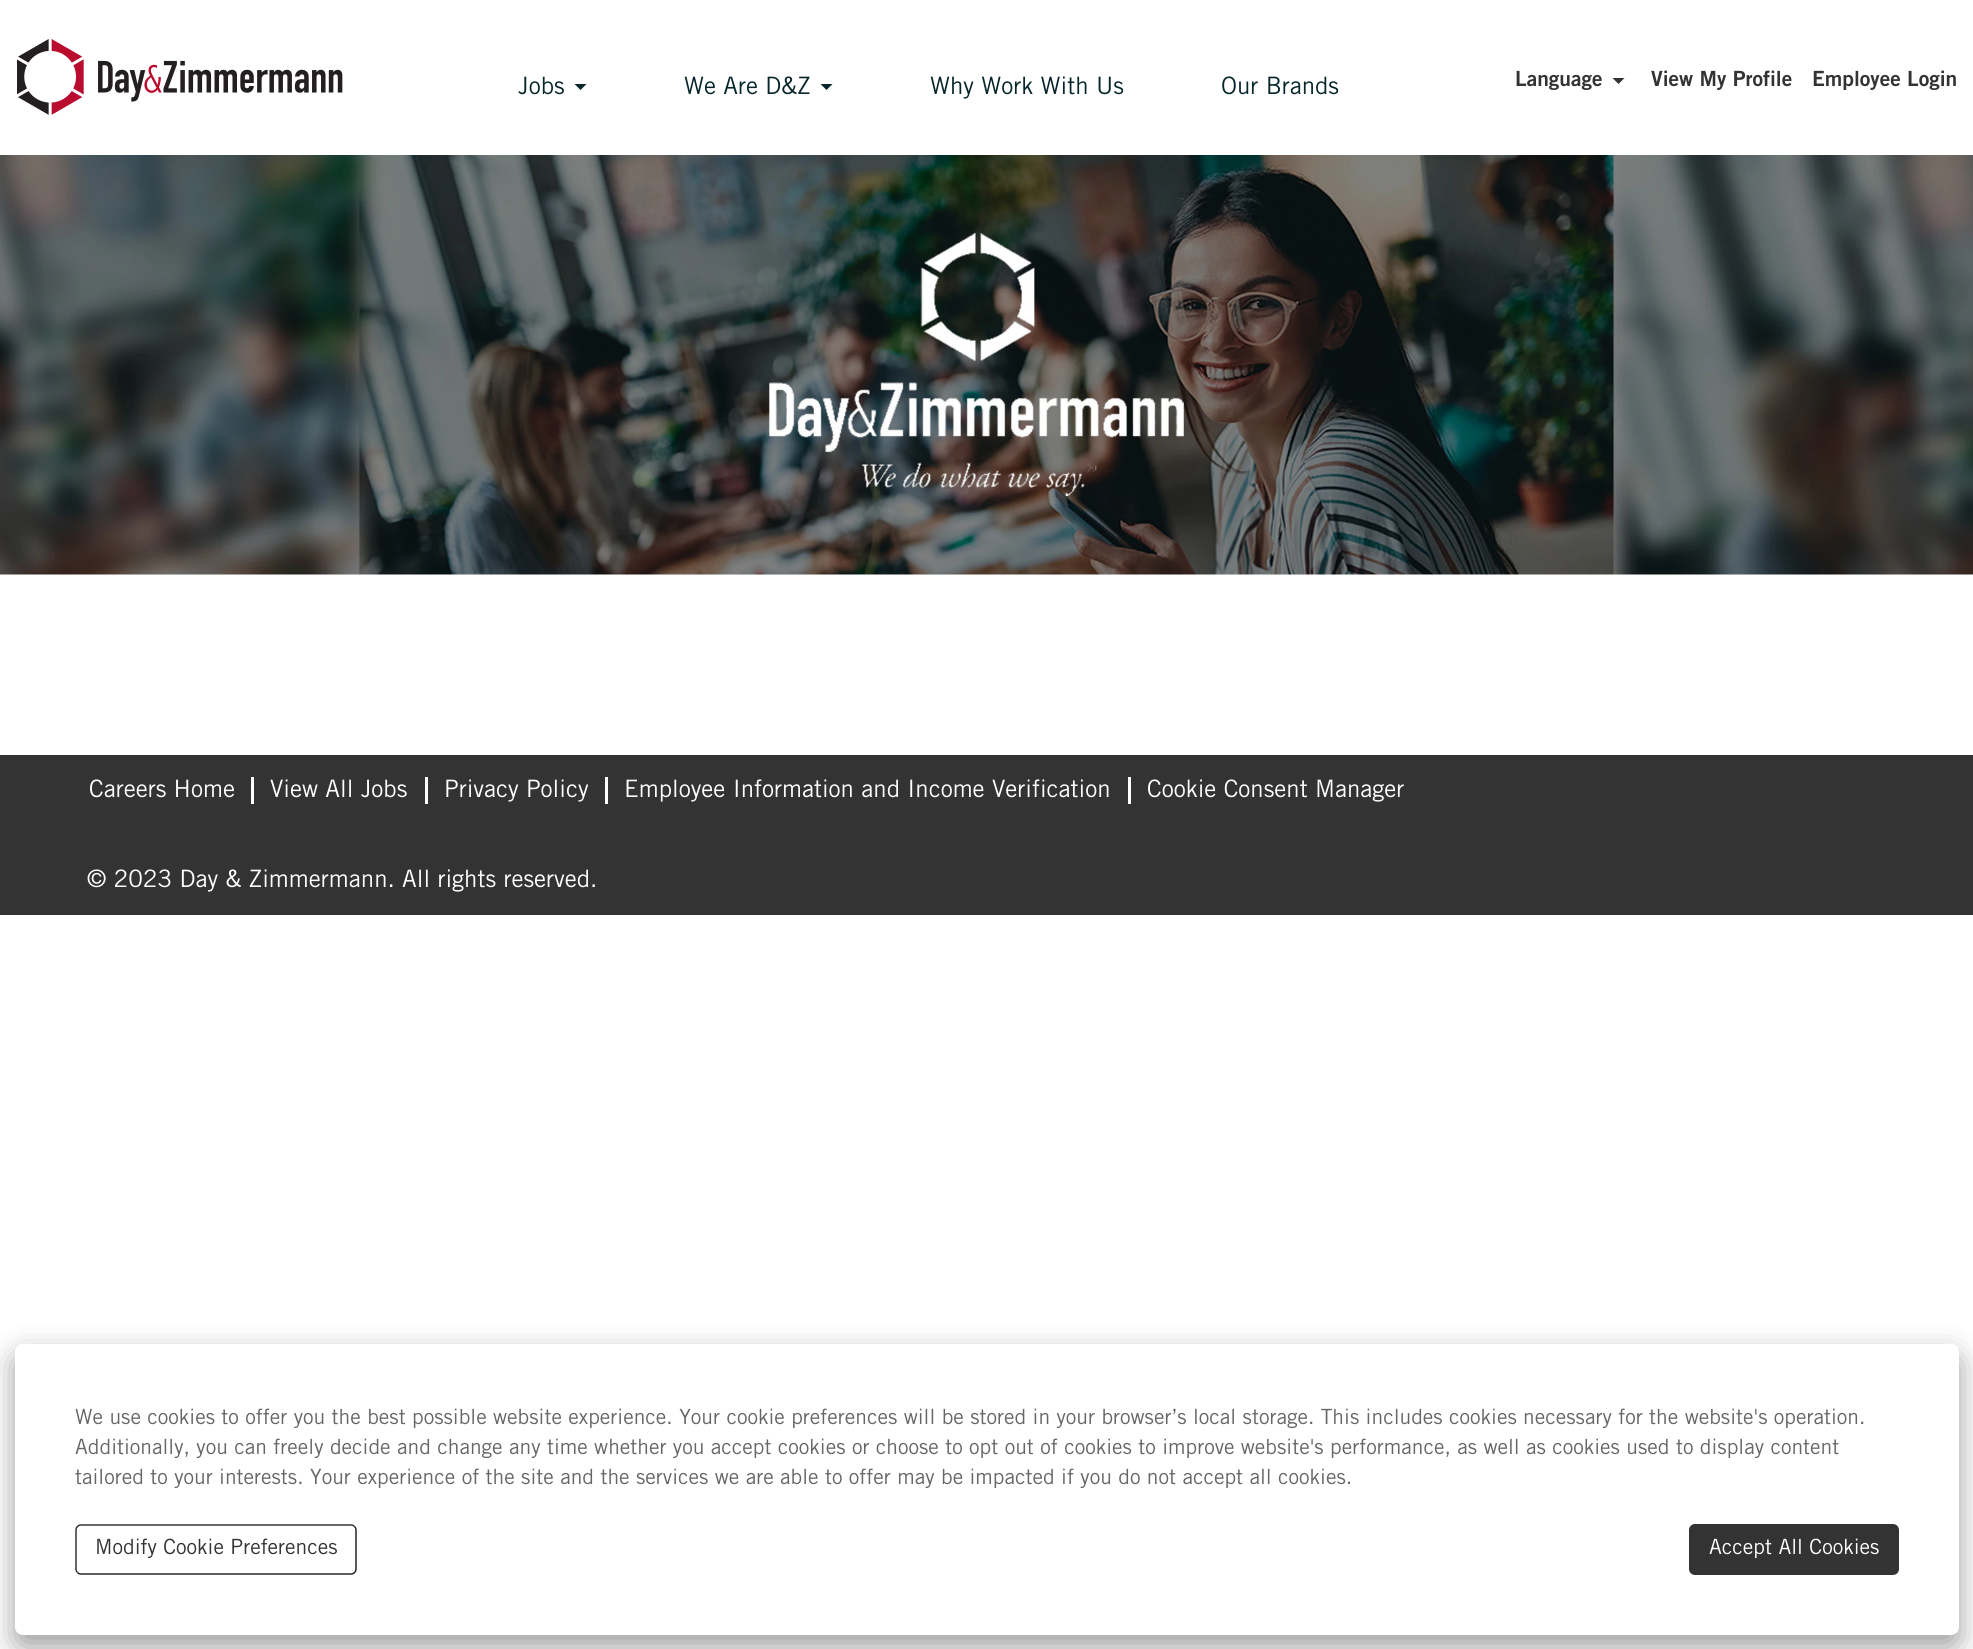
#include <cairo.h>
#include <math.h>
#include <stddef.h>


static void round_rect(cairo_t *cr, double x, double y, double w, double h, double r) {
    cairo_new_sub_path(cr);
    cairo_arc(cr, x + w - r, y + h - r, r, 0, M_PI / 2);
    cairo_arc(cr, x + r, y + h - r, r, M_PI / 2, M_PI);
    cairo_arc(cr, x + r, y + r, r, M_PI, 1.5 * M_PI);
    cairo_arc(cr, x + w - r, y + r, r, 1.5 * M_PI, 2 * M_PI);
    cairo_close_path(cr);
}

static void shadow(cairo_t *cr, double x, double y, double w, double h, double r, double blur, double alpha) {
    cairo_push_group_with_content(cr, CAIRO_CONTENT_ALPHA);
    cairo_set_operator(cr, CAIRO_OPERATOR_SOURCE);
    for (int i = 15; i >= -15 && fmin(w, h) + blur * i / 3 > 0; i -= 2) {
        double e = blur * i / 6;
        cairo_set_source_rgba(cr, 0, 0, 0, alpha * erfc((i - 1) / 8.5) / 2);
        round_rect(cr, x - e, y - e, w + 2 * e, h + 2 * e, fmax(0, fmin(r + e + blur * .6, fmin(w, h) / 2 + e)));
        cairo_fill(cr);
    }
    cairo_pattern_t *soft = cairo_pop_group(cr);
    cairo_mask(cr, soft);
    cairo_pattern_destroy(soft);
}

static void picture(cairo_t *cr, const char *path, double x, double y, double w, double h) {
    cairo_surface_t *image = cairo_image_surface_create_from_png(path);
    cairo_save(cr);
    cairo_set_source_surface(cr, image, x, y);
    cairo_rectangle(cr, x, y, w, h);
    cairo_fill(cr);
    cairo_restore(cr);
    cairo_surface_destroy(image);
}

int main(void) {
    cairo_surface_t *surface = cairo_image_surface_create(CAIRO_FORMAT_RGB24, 1973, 1649);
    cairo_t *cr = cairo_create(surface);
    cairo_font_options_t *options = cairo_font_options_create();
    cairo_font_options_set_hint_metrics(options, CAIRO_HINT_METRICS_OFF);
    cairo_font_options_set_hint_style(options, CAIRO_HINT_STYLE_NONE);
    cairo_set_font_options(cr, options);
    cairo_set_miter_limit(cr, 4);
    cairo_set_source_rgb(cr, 1, 1, 1);
    cairo_paint(cr);
    picture(cr, "img1.png", 17, 39, 326, 76);
    cairo_select_font_face(cr, "Trade Gothic", CAIRO_FONT_SLANT_NORMAL, CAIRO_FONT_WEIGHT_NORMAL);
    cairo_set_font_size(cr, 24);
    cairo_set_source_rgb(cr, 0.031, 0.149, 0.173);
    cairo_move_to(cr, 518, 94);
    cairo_show_text(cr, "Jobs");
    cairo_new_path(cr);
    cairo_move_to(cr, 574.5, 84);
    cairo_line_to(cr, 586.5, 84);
    cairo_line_to(cr, 580.5, 90);
    cairo_close_path(cr);
    cairo_fill(cr);
    cairo_move_to(cr, 684, 94);
    cairo_show_text(cr, "We Are D&Z");
    cairo_new_path(cr);
    cairo_move_to(cr, 820.5, 84);
    cairo_line_to(cr, 832.5, 84);
    cairo_line_to(cr, 826.5, 90);
    cairo_close_path(cr);
    cairo_fill(cr);
    cairo_move_to(cr, 930, 94);
    cairo_show_text(cr, "Why Work With Us");
    cairo_move_to(cr, 1221, 94);
    cairo_show_text(cr, "Our Brands");
    cairo_select_font_face(cr, "Trade Gothic", CAIRO_FONT_SLANT_NORMAL, CAIRO_FONT_WEIGHT_BOLD);
    cairo_set_font_size(cr, 21);
    cairo_set_source_rgb(cr, 0.2, 0.2, 0.2);
    cairo_move_to(cr, 1515, 86);
    cairo_show_text(cr, "Language");
    cairo_new_path(cr);
    cairo_move_to(cr, 1612.5, 78);
    cairo_line_to(cr, 1624.5, 78);
    cairo_line_to(cr, 1618.5, 84);
    cairo_close_path(cr);
    cairo_fill(cr);
    cairo_move_to(cr, 1651, 86);
    cairo_show_text(cr, "View My Profile");
    cairo_move_to(cr, 1812, 86);
    cairo_show_text(cr, "Employee Login");
    picture(cr, "img2.png", 0, 155, 1973, 420);
    cairo_rectangle(cr, 0, 755, 1973, 160);
    cairo_fill(cr);
    cairo_set_source_rgb(cr, 1, 1, 1);
    cairo_rectangle(cr, 251, 777, 3, 27);
    cairo_fill(cr);
    cairo_select_font_face(cr, "Trade Gothic", CAIRO_FONT_SLANT_NORMAL, CAIRO_FONT_WEIGHT_NORMAL);
    cairo_set_font_size(cr, 24);
    cairo_move_to(cr, 89, 797);
    cairo_show_text(cr, "Careers Home");
    cairo_rectangle(cr, 425, 777, 3, 27);
    cairo_fill(cr);
    cairo_move_to(cr, 270, 797);
    cairo_show_text(cr, "View All Jobs");
    cairo_rectangle(cr, 605, 777, 3, 27);
    cairo_fill(cr);
    cairo_move_to(cr, 444, 797);
    cairo_show_text(cr, "Privacy Policy");
    cairo_rectangle(cr, 1128, 777, 3, 27);
    cairo_fill(cr);
    cairo_move_to(cr, 624, 797);
    cairo_show_text(cr, "Employee Information and Income Verification");
    cairo_move_to(cr, 1147, 797);
    cairo_show_text(cr, "Cookie Consent Manager");
    cairo_move_to(cr, 87, 887);
    cairo_show_text(cr, "© 2023 Day & Zimmermann. All rights reserved.");
    cairo_set_source_rgb(cr, 0, 0, 0);
    shadow(cr, 15, 1356, 1944, 291, 8, 15, 0.39);
    cairo_set_source_rgb(cr, 1, 1, 1);
    round_rect(cr, 15, 1344, 1944, 291, 8);
    cairo_fill(cr);
    cairo_set_font_size(cr, 21);
    cairo_set_source_rgb(cr, 0.4, 0.4, 0.4);
    cairo_move_to(cr, 75, 1424);
    cairo_show_text(cr, "We use cookies to offer you the best possible website experience. Your cookie preferences will be stored in your browser’s local storage. This includes cookies necessary for the website's operation.");
    cairo_move_to(cr, 75, 1454);
    cairo_show_text(cr, "Additionally, you can freely decide and change any time whether you accept cookies or choose to opt out of cookies to improve website's performance, as well as cookies used to display content");
    cairo_move_to(cr, 75, 1484);
    cairo_show_text(cr, "tailored to your interests. Your experience of the site and the services we are able to offer may be impacted if you do not accept all cookies.");
    cairo_new_path(cr);
    cairo_move_to(cr, 354.5, 1526.5);
    cairo_curve_to(cr, 355.5, 1527.5, 356, 1528.5, 356, 1530);
    cairo_line_to(cr, 356, 1569);
    cairo_curve_to(cr, 356, 1570.5, 355.5, 1571.5, 354.5, 1572.5);
    cairo_curve_to(cr, 353.5, 1573.5, 352.5, 1574, 351, 1574);
    cairo_line_to(cr, 81, 1574);
    cairo_curve_to(cr, 79.5, 1574, 78.5, 1573.5, 77.5, 1572.5);
    cairo_set_source_rgb(cr, 0.133, 0.133, 0.133);
    cairo_set_line_width(cr, 1.5);
    cairo_stroke(cr);
    cairo_new_path(cr);
    cairo_move_to(cr, 77.5, 1572.5);
    cairo_curve_to(cr, 76.5, 1571.5, 76, 1570.5, 76, 1569);
    cairo_line_to(cr, 76, 1530);
    cairo_curve_to(cr, 76, 1528.5, 76.5, 1527.5, 77.5, 1526.5);
    cairo_curve_to(cr, 78.5, 1525.5, 79.5, 1525, 81, 1525);
    cairo_line_to(cr, 351, 1525);
    cairo_curve_to(cr, 352.5, 1525, 353.5, 1525.5, 354.5, 1526.5);
    cairo_set_source_rgb(cr, 0.2, 0.2, 0.2);
    cairo_stroke(cr);
    cairo_move_to(cr, 95, 1554);
    cairo_show_text(cr, "Modify Cookie Preferences");
    round_rect(cr, 1689, 1524, 210, 51, 6);
    cairo_fill(cr);
    cairo_set_source_rgb(cr, 1, 1, 1);
    cairo_move_to(cr, 1709, 1554);
    cairo_show_text(cr, "Accept All Cookies");
    cairo_surface_write_to_png(surface, "page.png");
    cairo_font_options_destroy(options);
    cairo_destroy(cr);
    cairo_surface_destroy(surface);
    return 0;
}
